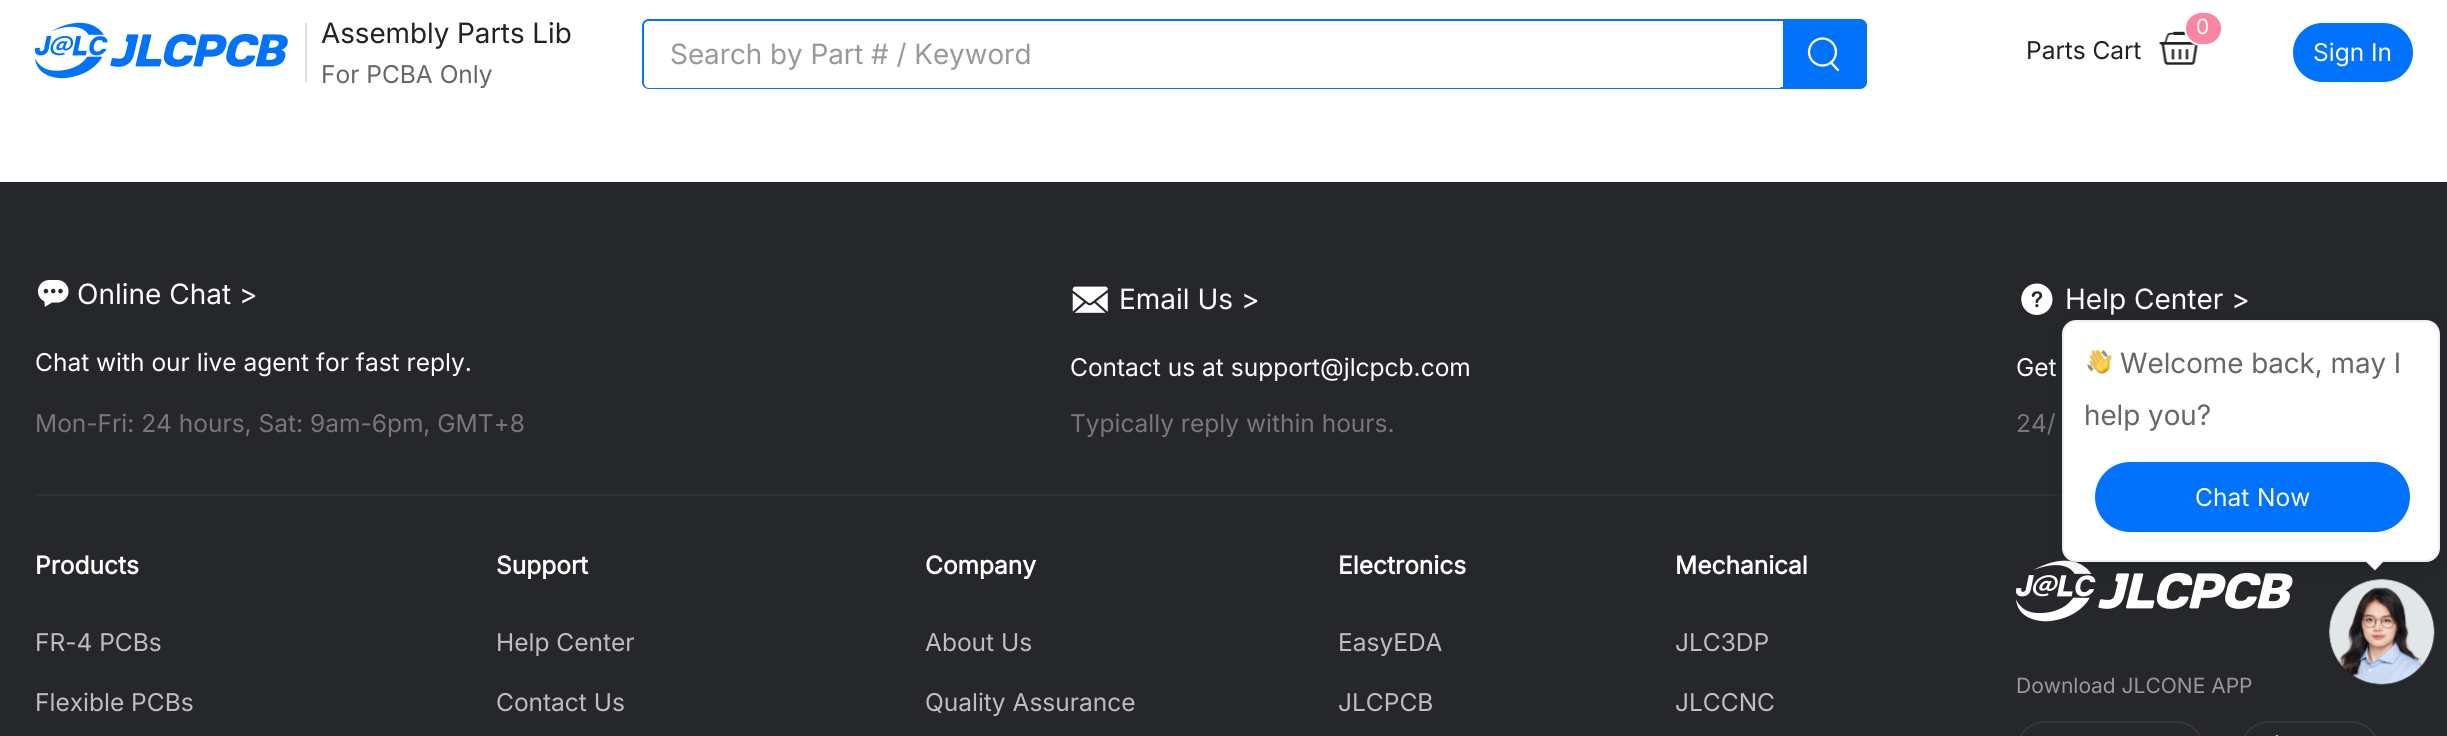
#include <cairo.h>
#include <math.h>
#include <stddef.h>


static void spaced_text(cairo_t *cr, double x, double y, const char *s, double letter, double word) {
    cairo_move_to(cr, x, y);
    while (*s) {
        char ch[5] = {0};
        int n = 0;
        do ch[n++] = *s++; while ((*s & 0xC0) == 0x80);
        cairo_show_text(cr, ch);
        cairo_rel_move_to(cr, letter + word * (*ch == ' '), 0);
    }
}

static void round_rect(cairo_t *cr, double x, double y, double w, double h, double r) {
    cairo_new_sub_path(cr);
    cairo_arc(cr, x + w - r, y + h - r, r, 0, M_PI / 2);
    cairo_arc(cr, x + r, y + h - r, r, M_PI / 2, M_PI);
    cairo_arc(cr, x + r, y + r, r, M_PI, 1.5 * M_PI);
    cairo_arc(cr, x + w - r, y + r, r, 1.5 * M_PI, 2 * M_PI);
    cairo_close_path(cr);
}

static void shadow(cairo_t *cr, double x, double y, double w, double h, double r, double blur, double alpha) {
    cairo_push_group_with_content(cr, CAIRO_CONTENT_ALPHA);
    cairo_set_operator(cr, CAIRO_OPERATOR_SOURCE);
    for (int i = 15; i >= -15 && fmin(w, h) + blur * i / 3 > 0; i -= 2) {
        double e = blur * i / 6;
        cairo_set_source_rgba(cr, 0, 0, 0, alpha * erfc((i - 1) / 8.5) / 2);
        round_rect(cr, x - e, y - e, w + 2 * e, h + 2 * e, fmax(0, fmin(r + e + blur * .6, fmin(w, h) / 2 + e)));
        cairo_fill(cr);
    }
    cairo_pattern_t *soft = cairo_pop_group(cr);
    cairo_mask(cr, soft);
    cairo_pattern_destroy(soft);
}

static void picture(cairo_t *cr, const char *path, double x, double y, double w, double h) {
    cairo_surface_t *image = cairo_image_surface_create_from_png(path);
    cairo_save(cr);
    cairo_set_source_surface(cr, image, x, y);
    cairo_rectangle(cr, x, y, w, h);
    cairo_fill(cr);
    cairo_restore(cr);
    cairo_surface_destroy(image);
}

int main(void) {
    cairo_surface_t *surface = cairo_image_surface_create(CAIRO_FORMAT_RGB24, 2447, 736);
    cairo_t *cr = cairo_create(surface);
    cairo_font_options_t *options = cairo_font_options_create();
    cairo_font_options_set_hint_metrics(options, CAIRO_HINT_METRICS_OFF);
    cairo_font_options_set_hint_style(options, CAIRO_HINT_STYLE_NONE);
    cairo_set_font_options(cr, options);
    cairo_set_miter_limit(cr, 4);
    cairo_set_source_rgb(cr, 1, 1, 1);
    cairo_paint(cr);
    picture(cr, "img1.png", 35, 22, 253, 57);
    cairo_set_source_rgb(cr, 0.859, 0.859, 0.859);
    cairo_rectangle(cr, 305, 23, 2, 59);
    cairo_fill(cr);
    cairo_select_font_face(cr, "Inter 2", CAIRO_FONT_SLANT_NORMAL, CAIRO_FONT_WEIGHT_NORMAL);
    cairo_set_font_size(cr, 28);
    cairo_set_source_rgb(cr, 0.133, 0.133, 0.133);
    cairo_move_to(cr, 321, 43);
    cairo_show_text(cr, "Assembly Parts Lib");
    cairo_select_font_face(cr, "Inter", CAIRO_FONT_SLANT_NORMAL, CAIRO_FONT_WEIGHT_NORMAL);
    cairo_set_font_size(cr, 24.5);
    cairo_set_source_rgb(cr, 0.4, 0.4, 0.4);
    cairo_move_to(cr, 321, 83);
    cairo_show_text(cr, "For PCBA Only");
    round_rect(cr, 643, 20, 1223, 68, 6);
    cairo_set_source_rgb(cr, 0, 0.447, 0.988);
    cairo_stroke(cr);
    cairo_save(cr);
    round_rect(cr, 644, 21, 1222, 67, 5);
    cairo_clip(cr);
    cairo_set_source_rgb(cr, 1, 1, 1);
    round_rect(cr, 644, 19, 1139, 70, 7);
    cairo_fill(cr);
    cairo_restore(cr);
    cairo_select_font_face(cr, "Inter 2", CAIRO_FONT_SLANT_NORMAL, CAIRO_FONT_WEIGHT_NORMAL);
    cairo_set_font_size(cr, 28);
    cairo_set_source_rgb(cr, 0.6, 0.6, 0.6);
    cairo_move_to(cr, 670, 64);
    cairo_show_text(cr, "Search by Part # / Keyword");
    cairo_set_source_rgb(cr, 0, 0.447, 0.988);
    cairo_new_path(cr);
    cairo_move_to(cr, 1783, 21);
    cairo_line_to(cr, 1861, 21);
    cairo_curve_to(cr, 1864, 21, 1866, 23, 1866, 26);
    cairo_line_to(cr, 1866, 83);
    cairo_curve_to(cr, 1866, 86, 1864, 88, 1861, 88);
    cairo_line_to(cr, 1783, 88);
    cairo_close_path(cr);
    cairo_fill(cr);
    cairo_arc(cr, 1822.5, 52, 13.5, 0, 2 * M_PI);
    cairo_set_source_rgb(cr, 1, 1, 1);
    cairo_set_line_width(cr, 2.3);
    cairo_stroke(cr);
    cairo_new_path(cr);
    cairo_move_to(cr, 1831, 62.5);
    cairo_line_to(cr, 1838, 70);
    cairo_set_line_cap(cr, CAIRO_LINE_CAP_ROUND);
    cairo_stroke(cr);
    picture(cr, "img2.png", 2159, 31, 41, 34);
    cairo_set_source_rgb(cr, 0.984, 0.525, 0.639);
    round_rect(cr, 2185, 12, 37, 33, 16.5);
    cairo_fill_preserve(cr);
    cairo_set_source_rgb(cr, 1, 1, 1);
    cairo_set_line_width(cr, 2);
    cairo_set_line_cap(cr, CAIRO_LINE_CAP_BUTT);
    cairo_stroke(cr);
    cairo_select_font_face(cr, "Inter", CAIRO_FONT_SLANT_NORMAL, CAIRO_FONT_WEIGHT_NORMAL);
    cairo_set_font_size(cr, 21);
    cairo_move_to(cr, 2196, 34);
    cairo_show_text(cr, "0");
    cairo_set_font_size(cr, 24.5);
    cairo_set_source_rgb(cr, 0.133, 0.133, 0.133);
    cairo_move_to(cr, 2026, 59);
    cairo_show_text(cr, "Parts Cart");
    cairo_set_source_rgb(cr, 0, 0.447, 0.988);
    round_rect(cr, 2293, 23, 120, 59, 29.5);
    cairo_fill(cr);
    cairo_set_source_rgb(cr, 1, 1, 1);
    cairo_move_to(cr, 2313, 61);
    cairo_show_text(cr, "Sign In");
    cairo_set_source_rgb(cr, 0.149, 0.153, 0.165);
    cairo_rectangle(cr, 0, 182, 2447, 554);
    cairo_fill(cr);
    picture(cr, "img3.png", 37, 280, 32, 27);
    cairo_set_font_size(cr, 28);
    cairo_set_source_rgb(cr, 1, 1, 1);
    cairo_move_to(cr, 77, 304);
    cairo_show_text(cr, "Online Chat >");
    cairo_set_font_size(cr, 24.5);
    cairo_move_to(cr, 35, 371);
    cairo_show_text(cr, "Chat with our live agent for fast reply.");
    cairo_set_source_rgb(cr, 0.467, 0.467, 0.471);
    cairo_move_to(cr, 35, 432);
    cairo_show_text(cr, "Mon-Fri: 24 hours, Sat: 9am-6pm, GMT+8");
    picture(cr, "img4.png", 1072, 286, 36, 27);
    cairo_set_font_size(cr, 28);
    cairo_set_source_rgb(cr, 1, 1, 1);
    cairo_move_to(cr, 1119, 309);
    cairo_show_text(cr, "Email Us >");
    cairo_set_font_size(cr, 24.5);
    cairo_move_to(cr, 1070, 376);
    cairo_show_text(cr, "Contact us at support@jlcpcb.com");
    cairo_set_source_rgb(cr, 0.467, 0.467, 0.471);
    cairo_move_to(cr, 1070, 432);
    cairo_show_text(cr, "Typically reply within hours.");
    picture(cr, "img5.png", 2021, 283, 32, 32);
    cairo_set_font_size(cr, 28);
    cairo_set_source_rgb(cr, 1, 1, 1);
    cairo_move_to(cr, 2065, 309);
    cairo_show_text(cr, "Help Center >");
    cairo_set_font_size(cr, 24.5);
    cairo_move_to(cr, 2016, 376);
    cairo_show_text(cr, "Get");
    cairo_set_source_rgb(cr, 0.467, 0.467, 0.471);
    cairo_move_to(cr, 2016, 432);
    cairo_show_text(cr, "24/");
    cairo_set_source_rgb(cr, 0.18, 0.184, 0.196);
    cairo_rectangle(cr, 35, 494, 2027, 2);
    cairo_fill(cr);
    cairo_select_font_face(cr, "Inter", CAIRO_FONT_SLANT_NORMAL, CAIRO_FONT_WEIGHT_BOLD);
    cairo_set_source_rgb(cr, 1, 1, 1);
    cairo_move_to(cr, 35, 574);
    cairo_show_text(cr, "Products");
    cairo_select_font_face(cr, "Inter", CAIRO_FONT_SLANT_NORMAL, CAIRO_FONT_WEIGHT_NORMAL);
    cairo_set_source_rgb(cr, 0.745, 0.745, 0.749);
    cairo_move_to(cr, 35, 651);
    cairo_show_text(cr, "FR-4 PCBs");
    cairo_move_to(cr, 35, 711);
    cairo_show_text(cr, "Flexible PCBs");
    cairo_select_font_face(cr, "Inter", CAIRO_FONT_SLANT_NORMAL, CAIRO_FONT_WEIGHT_BOLD);
    cairo_set_source_rgb(cr, 1, 1, 1);
    cairo_move_to(cr, 496, 574);
    cairo_show_text(cr, "Support");
    cairo_select_font_face(cr, "Inter", CAIRO_FONT_SLANT_NORMAL, CAIRO_FONT_WEIGHT_NORMAL);
    cairo_set_source_rgb(cr, 0.745, 0.745, 0.749);
    cairo_move_to(cr, 496, 651);
    cairo_show_text(cr, "Help Center");
    cairo_move_to(cr, 496, 711);
    cairo_show_text(cr, "Contact Us");
    cairo_select_font_face(cr, "Inter", CAIRO_FONT_SLANT_NORMAL, CAIRO_FONT_WEIGHT_BOLD);
    cairo_set_source_rgb(cr, 1, 1, 1);
    cairo_move_to(cr, 925, 574);
    cairo_show_text(cr, "Company");
    cairo_select_font_face(cr, "Inter", CAIRO_FONT_SLANT_NORMAL, CAIRO_FONT_WEIGHT_NORMAL);
    cairo_set_source_rgb(cr, 0.745, 0.745, 0.749);
    cairo_move_to(cr, 925, 651);
    cairo_show_text(cr, "About Us");
    cairo_move_to(cr, 925, 711);
    cairo_show_text(cr, "Quality Assurance");
    cairo_select_font_face(cr, "Inter", CAIRO_FONT_SLANT_NORMAL, CAIRO_FONT_WEIGHT_BOLD);
    cairo_set_source_rgb(cr, 1, 1, 1);
    cairo_move_to(cr, 1338, 574);
    cairo_show_text(cr, "Electronics");
    cairo_select_font_face(cr, "Inter", CAIRO_FONT_SLANT_NORMAL, CAIRO_FONT_WEIGHT_NORMAL);
    cairo_set_source_rgb(cr, 0.745, 0.745, 0.749);
    cairo_move_to(cr, 1338, 651);
    cairo_show_text(cr, "EasyEDA");
    cairo_move_to(cr, 1338, 711);
    cairo_show_text(cr, "JLCPCB");
    cairo_select_font_face(cr, "Inter", CAIRO_FONT_SLANT_NORMAL, CAIRO_FONT_WEIGHT_BOLD);
    cairo_set_source_rgb(cr, 1, 1, 1);
    cairo_move_to(cr, 1675, 574);
    cairo_show_text(cr, "Mechanical");
    cairo_select_font_face(cr, "Inter", CAIRO_FONT_SLANT_NORMAL, CAIRO_FONT_WEIGHT_NORMAL);
    cairo_set_source_rgb(cr, 0.745, 0.745, 0.749);
    cairo_move_to(cr, 1675, 651);
    cairo_show_text(cr, "JLC3DP");
    cairo_move_to(cr, 1675, 711);
    cairo_show_text(cr, "JLCCNC");
    picture(cr, "img6.png", 2016, 560, 277, 62);
    cairo_set_font_size(cr, 21);
    cairo_set_source_rgb(cr, 0.6, 0.6, 0.6);
    cairo_move_to(cr, 2016, 693);
    cairo_show_text(cr, "Download JLCONE APP");
    round_rect(cr, 2017, 722, 187, 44, 28);
    cairo_set_source_rgb(cr, 0.208, 0.212, 0.227);
    cairo_stroke(cr);
    round_rect(cr, 2241, 722, 138, 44, 28);
    cairo_stroke(cr);
    picture(cr, "img7.png", 2275, 735, 3, 1);
    cairo_set_source_rgb(cr, 0, 0, 0);
    shadow(cr, 2062, 324, 378, 241, 14, 10.5, 0.1);
    picture(cr, "img8.png", 2329, 579, 106, 106);
    cairo_set_source_rgb(cr, 1, 1, 1);
    round_rect(cr, 2063, 321, 376, 240, 13);
    cairo_fill_preserve(cr);
    cairo_set_source_rgb(cr, 0.922, 0.933, 0.961);
    cairo_stroke(cr);
    picture(cr, "img9.png", 2087, 349, 26, 26);
    cairo_select_font_face(cr, "Inter 2", CAIRO_FONT_SLANT_NORMAL, CAIRO_FONT_WEIGHT_NORMAL);
    cairo_set_font_size(cr, 28);
    cairo_set_source_rgb(cr, 0.4, 0.4, 0.4);
    cairo_move_to(cr, 2120, 373);
    cairo_show_text(cr, "Welcome back, may I");
    cairo_move_to(cr, 2084, 425);
    cairo_show_text(cr, "help you?");
    cairo_set_source_rgb(cr, 0, 0.447, 0.988);
    round_rect(cr, 2096, 463, 313, 68, 34);
    cairo_fill_preserve(cr);
    cairo_stroke(cr);
    cairo_select_font_face(cr, "Inter", CAIRO_FONT_SLANT_NORMAL, CAIRO_FONT_WEIGHT_NORMAL);
    cairo_set_font_size(cr, 24.5);
    cairo_set_source_rgb(cr, 1, 1, 1);
    spaced_text(cr, 2195, 506, "Chat Now", 0, 1);
    cairo_set_source_rgb(cr, 0.922, 0.933, 0.961);
    cairo_new_path(cr);
    cairo_move_to(cr, 2364, 560);
    cairo_line_to(cr, 2385, 560);
    cairo_line_to(cr, 2375, 570.5);
    cairo_close_path(cr);
    cairo_fill(cr);
    cairo_set_source_rgb(cr, 1, 1, 1);
    cairo_new_path(cr);
    cairo_move_to(cr, 2364, 558);
    cairo_line_to(cr, 2385, 558);
    cairo_line_to(cr, 2375, 569);
    cairo_close_path(cr);
    cairo_fill(cr);
    cairo_surface_write_to_png(surface, "page.png");
    cairo_font_options_destroy(options);
    cairo_destroy(cr);
    cairo_surface_destroy(surface);
    return 0;
}
